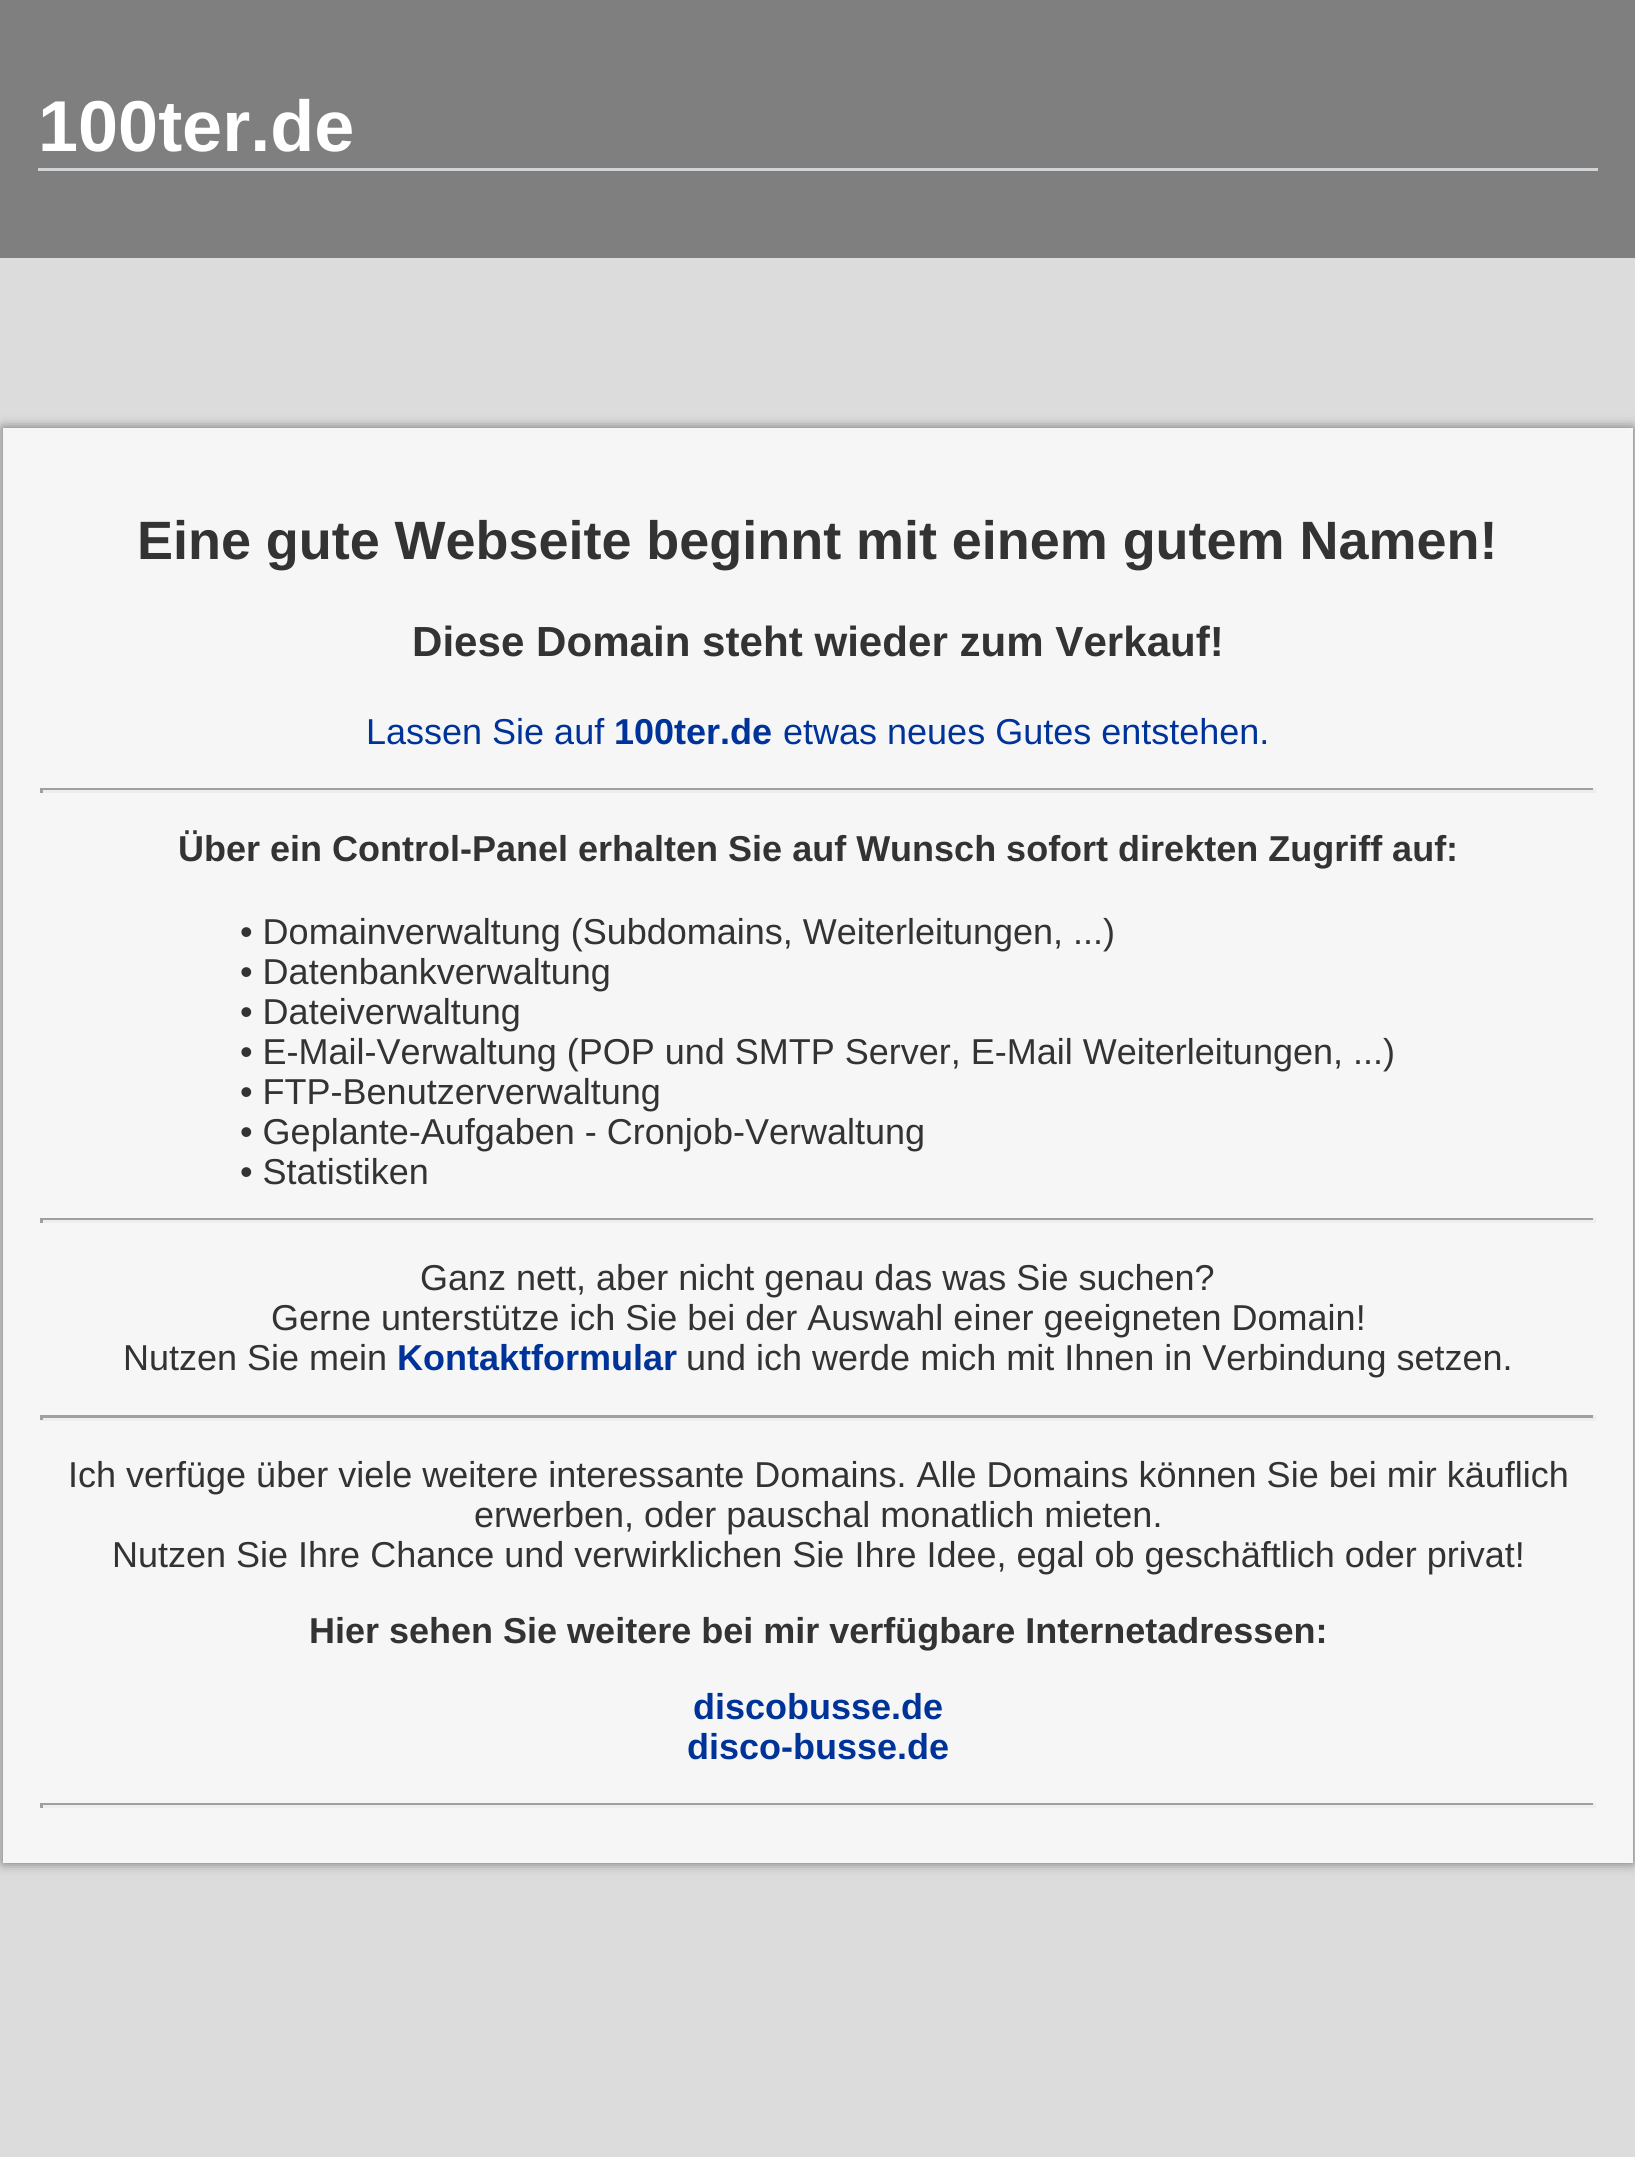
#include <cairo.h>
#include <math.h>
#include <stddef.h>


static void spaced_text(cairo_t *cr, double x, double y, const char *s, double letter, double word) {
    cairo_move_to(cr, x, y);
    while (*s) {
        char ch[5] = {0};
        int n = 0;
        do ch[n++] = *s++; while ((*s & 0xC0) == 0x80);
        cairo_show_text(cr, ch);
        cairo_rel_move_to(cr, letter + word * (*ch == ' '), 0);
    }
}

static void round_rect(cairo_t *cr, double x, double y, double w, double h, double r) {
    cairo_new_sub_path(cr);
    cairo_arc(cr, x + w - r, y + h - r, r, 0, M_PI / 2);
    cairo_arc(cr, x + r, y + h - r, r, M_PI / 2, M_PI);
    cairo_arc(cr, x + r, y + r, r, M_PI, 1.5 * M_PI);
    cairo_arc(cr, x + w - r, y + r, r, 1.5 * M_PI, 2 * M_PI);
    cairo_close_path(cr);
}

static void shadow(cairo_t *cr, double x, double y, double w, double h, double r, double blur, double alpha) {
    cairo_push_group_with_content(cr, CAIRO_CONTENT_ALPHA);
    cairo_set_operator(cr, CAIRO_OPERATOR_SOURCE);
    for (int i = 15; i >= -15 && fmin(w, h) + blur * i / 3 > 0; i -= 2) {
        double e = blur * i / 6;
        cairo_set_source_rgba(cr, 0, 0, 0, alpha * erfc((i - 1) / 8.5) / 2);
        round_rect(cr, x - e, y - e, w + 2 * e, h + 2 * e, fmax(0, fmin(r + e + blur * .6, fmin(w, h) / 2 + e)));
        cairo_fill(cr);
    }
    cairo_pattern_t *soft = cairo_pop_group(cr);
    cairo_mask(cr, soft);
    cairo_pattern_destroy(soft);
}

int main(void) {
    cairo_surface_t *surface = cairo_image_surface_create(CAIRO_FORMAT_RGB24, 1635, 2157);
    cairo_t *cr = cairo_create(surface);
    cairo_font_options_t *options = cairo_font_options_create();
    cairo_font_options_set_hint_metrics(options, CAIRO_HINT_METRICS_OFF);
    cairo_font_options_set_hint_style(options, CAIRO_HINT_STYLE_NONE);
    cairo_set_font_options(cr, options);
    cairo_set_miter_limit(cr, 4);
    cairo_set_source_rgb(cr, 0.863, 0.863, 0.863);
    cairo_paint(cr);
    cairo_set_source_rgb(cr, 0.498, 0.498, 0.498);
    cairo_rectangle(cr, 0, 0, 1635, 258);
    cairo_fill(cr);
    cairo_set_source_rgb(cr, 0.82, 0.835, 0.847);
    cairo_rectangle(cr, 38, 168, 1560, 3);
    cairo_fill(cr);
    cairo_select_font_face(cr, "Liberation Sans", CAIRO_FONT_SLANT_NORMAL, CAIRO_FONT_WEIGHT_BOLD);
    cairo_set_font_size(cr, 72);
    cairo_set_source_rgb(cr, 1, 1, 1);
    cairo_move_to(cr, 38, 151);
    cairo_show_text(cr, "100ter.de");
    cairo_save(cr);
    cairo_set_fill_rule(cr, CAIRO_FILL_RULE_EVEN_ODD);
    cairo_new_path(cr);
    cairo_move_to(cr, 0, 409);
    cairo_line_to(cr, 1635, 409);
    cairo_line_to(cr, 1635, 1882);
    cairo_line_to(cr, 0, 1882);
    cairo_close_path(cr);
    cairo_move_to(cr, 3, 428);
    cairo_line_to(cr, 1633, 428);
    cairo_line_to(cr, 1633, 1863);
    cairo_line_to(cr, 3, 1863);
    cairo_close_path(cr);
    cairo_clip(cr);
    cairo_set_source_rgb(cr, 0, 0, 0);
    shadow(cr, 3, 428, 1630, 1435, 0, 6, 0.5);
    cairo_restore(cr);
    cairo_set_source_rgba(cr, 1, 1, 1, 0.75);
    cairo_rectangle(cr, 3, 428, 1630, 1435);
    cairo_fill(cr);
    cairo_set_font_size(cr, 54);
    cairo_set_source_rgb(cr, 0.2, 0.2, 0.2);
    spaced_text(cr, 137, 559, "Eine gute Webseite beginnt mit einem gutem Namen!", 0, -0.25);
    cairo_set_font_size(cr, 42.1);
    cairo_move_to(cr, 412, 656);
    cairo_show_text(cr, "Diese Domain steht wieder zum Verkauf!");
    cairo_select_font_face(cr, "Liberation Sans", CAIRO_FONT_SLANT_NORMAL, CAIRO_FONT_WEIGHT_NORMAL);
    cairo_set_font_size(cr, 36);
    cairo_set_source_rgb(cr, 0, 0.2, 0.6);
    cairo_move_to(cr, 366, 744);
    cairo_show_text(cr, "Lassen Sie auf");
    cairo_select_font_face(cr, "Liberation Sans", CAIRO_FONT_SLANT_NORMAL, CAIRO_FONT_WEIGHT_BOLD);
    cairo_move_to(cr, 614, 744);
    cairo_show_text(cr, "100ter.de");
    cairo_select_font_face(cr, "Liberation Sans", CAIRO_FONT_SLANT_NORMAL, CAIRO_FONT_WEIGHT_NORMAL);
    cairo_move_to(cr, 783, 744);
    cairo_show_text(cr, "etwas neues Gutes entstehen.");
    cairo_set_source_rgb(cr, 0.624, 0.624, 0.624);
    cairo_rectangle(cr, 40, 788, 1555, 2);
    cairo_fill(cr);
    cairo_set_source_rgb(cr, 0.933, 0.933, 0.933);
    cairo_rectangle(cr, 1593, 788, 3, 5);
    cairo_fill(cr);
    cairo_rectangle(cr, 40, 790, 1555, 3);
    cairo_fill(cr);
    cairo_set_source_rgb(cr, 0.624, 0.624, 0.624);
    cairo_rectangle(cr, 40, 788, 3, 5);
    cairo_fill(cr);
    cairo_select_font_face(cr, "Liberation Sans", CAIRO_FONT_SLANT_NORMAL, CAIRO_FONT_WEIGHT_BOLD);
    cairo_set_source_rgb(cr, 0.2, 0.2, 0.2);
    cairo_move_to(cr, 178, 861);
    cairo_show_text(cr, "Über ein Control-Panel erhalten Sie auf Wunsch sofort direkten Zugriff auf:");
    cairo_select_font_face(cr, "Liberation Sans", CAIRO_FONT_SLANT_NORMAL, CAIRO_FONT_WEIGHT_NORMAL);
    cairo_move_to(cr, 240, 944);
    cairo_show_text(cr, "• Domainverwaltung (Subdomains, Weiterleitungen, ...)");
    cairo_move_to(cr, 240, 984);
    cairo_show_text(cr, "• Datenbankverwaltung");
    cairo_move_to(cr, 240, 1024);
    cairo_show_text(cr, "• Dateiverwaltung");
    cairo_move_to(cr, 240, 1064);
    cairo_show_text(cr, "• E-Mail-Verwaltung (POP und SMTP Server, E-Mail Weiterleitungen, ...)");
    cairo_move_to(cr, 240, 1104);
    cairo_show_text(cr, "• FTP-Benutzerverwaltung");
    cairo_move_to(cr, 240, 1144);
    cairo_show_text(cr, "• Geplante-Aufgaben - Cronjob-Verwaltung");
    cairo_move_to(cr, 240, 1184);
    cairo_show_text(cr, "• Statistiken");
    cairo_set_source_rgb(cr, 0.624, 0.624, 0.624);
    cairo_rectangle(cr, 40, 1218, 1555, 2);
    cairo_fill(cr);
    cairo_set_source_rgb(cr, 0.933, 0.933, 0.933);
    cairo_rectangle(cr, 1593, 1218, 3, 5);
    cairo_fill(cr);
    cairo_rectangle(cr, 40, 1220, 1555, 3);
    cairo_fill(cr);
    cairo_set_source_rgb(cr, 0.624, 0.624, 0.624);
    cairo_rectangle(cr, 40, 1218, 3, 5);
    cairo_fill(cr);
    cairo_set_source_rgb(cr, 0.2, 0.2, 0.2);
    cairo_move_to(cr, 420, 1290);
    cairo_show_text(cr, "Ganz nett, aber nicht genau das was Sie suchen?");
    cairo_move_to(cr, 271, 1330);
    cairo_show_text(cr, "Gerne unterstütze ich Sie bei der Auswahl einer geeigneten Domain!");
    cairo_move_to(cr, 123, 1370);
    cairo_show_text(cr, "Nutzen Sie mein");
    cairo_select_font_face(cr, "Liberation Sans", CAIRO_FONT_SLANT_NORMAL, CAIRO_FONT_WEIGHT_BOLD);
    cairo_set_source_rgb(cr, 0, 0.2, 0.6);
    cairo_move_to(cr, 397, 1370);
    cairo_show_text(cr, "Kontaktformular");
    cairo_select_font_face(cr, "Liberation Sans", CAIRO_FONT_SLANT_NORMAL, CAIRO_FONT_WEIGHT_NORMAL);
    cairo_set_source_rgb(cr, 0.2, 0.2, 0.2);
    cairo_move_to(cr, 686, 1370);
    cairo_show_text(cr, "und ich werde mich mit Ihnen in Verbindung setzen.");
    cairo_set_source_rgb(cr, 0.624, 0.624, 0.624);
    cairo_rectangle(cr, 40, 1415, 1555, 3);
    cairo_fill(cr);
    cairo_set_source_rgb(cr, 0.933, 0.933, 0.933);
    cairo_rectangle(cr, 1593, 1415, 3, 5);
    cairo_fill(cr);
    cairo_rectangle(cr, 40, 1418, 1555, 3);
    cairo_fill(cr);
    cairo_set_source_rgb(cr, 0.624, 0.624, 0.624);
    cairo_rectangle(cr, 40, 1415, 3, 5);
    cairo_fill(cr);
    cairo_set_source_rgb(cr, 0.2, 0.2, 0.2);
    cairo_move_to(cr, 68, 1487);
    cairo_show_text(cr, "Ich verfüge über viele weitere interessante Domains. Alle Domains können Sie bei mir käuflich");
    cairo_move_to(cr, 474, 1527);
    cairo_show_text(cr, "erwerben, oder pauschal monatlich mieten.");
    cairo_move_to(cr, 112, 1567);
    cairo_show_text(cr, "Nutzen Sie Ihre Chance und verwirklichen Sie Ihre Idee, egal ob geschäftlich oder privat!");
    cairo_select_font_face(cr, "Liberation Sans", CAIRO_FONT_SLANT_NORMAL, CAIRO_FONT_WEIGHT_BOLD);
    cairo_move_to(cr, 309, 1643);
    cairo_show_text(cr, "Hier sehen Sie weitere bei mir verfügbare Internetadressen:");
    cairo_set_source_rgb(cr, 0, 0.2, 0.6);
    cairo_move_to(cr, 693, 1719);
    cairo_show_text(cr, "discobusse.de");
    cairo_move_to(cr, 687, 1759);
    cairo_show_text(cr, "disco-busse.de");
    cairo_set_source_rgb(cr, 0.624, 0.624, 0.624);
    cairo_rectangle(cr, 40, 1803, 1555, 2);
    cairo_fill(cr);
    cairo_set_source_rgb(cr, 0.933, 0.933, 0.933);
    cairo_rectangle(cr, 1593, 1803, 3, 5);
    cairo_fill(cr);
    cairo_rectangle(cr, 40, 1805, 1555, 3);
    cairo_fill(cr);
    cairo_set_source_rgb(cr, 0.624, 0.624, 0.624);
    cairo_rectangle(cr, 40, 1803, 3, 5);
    cairo_fill(cr);
    cairo_surface_write_to_png(surface, "page.png");
    cairo_font_options_destroy(options);
    cairo_destroy(cr);
    cairo_surface_destroy(surface);
    return 0;
}
